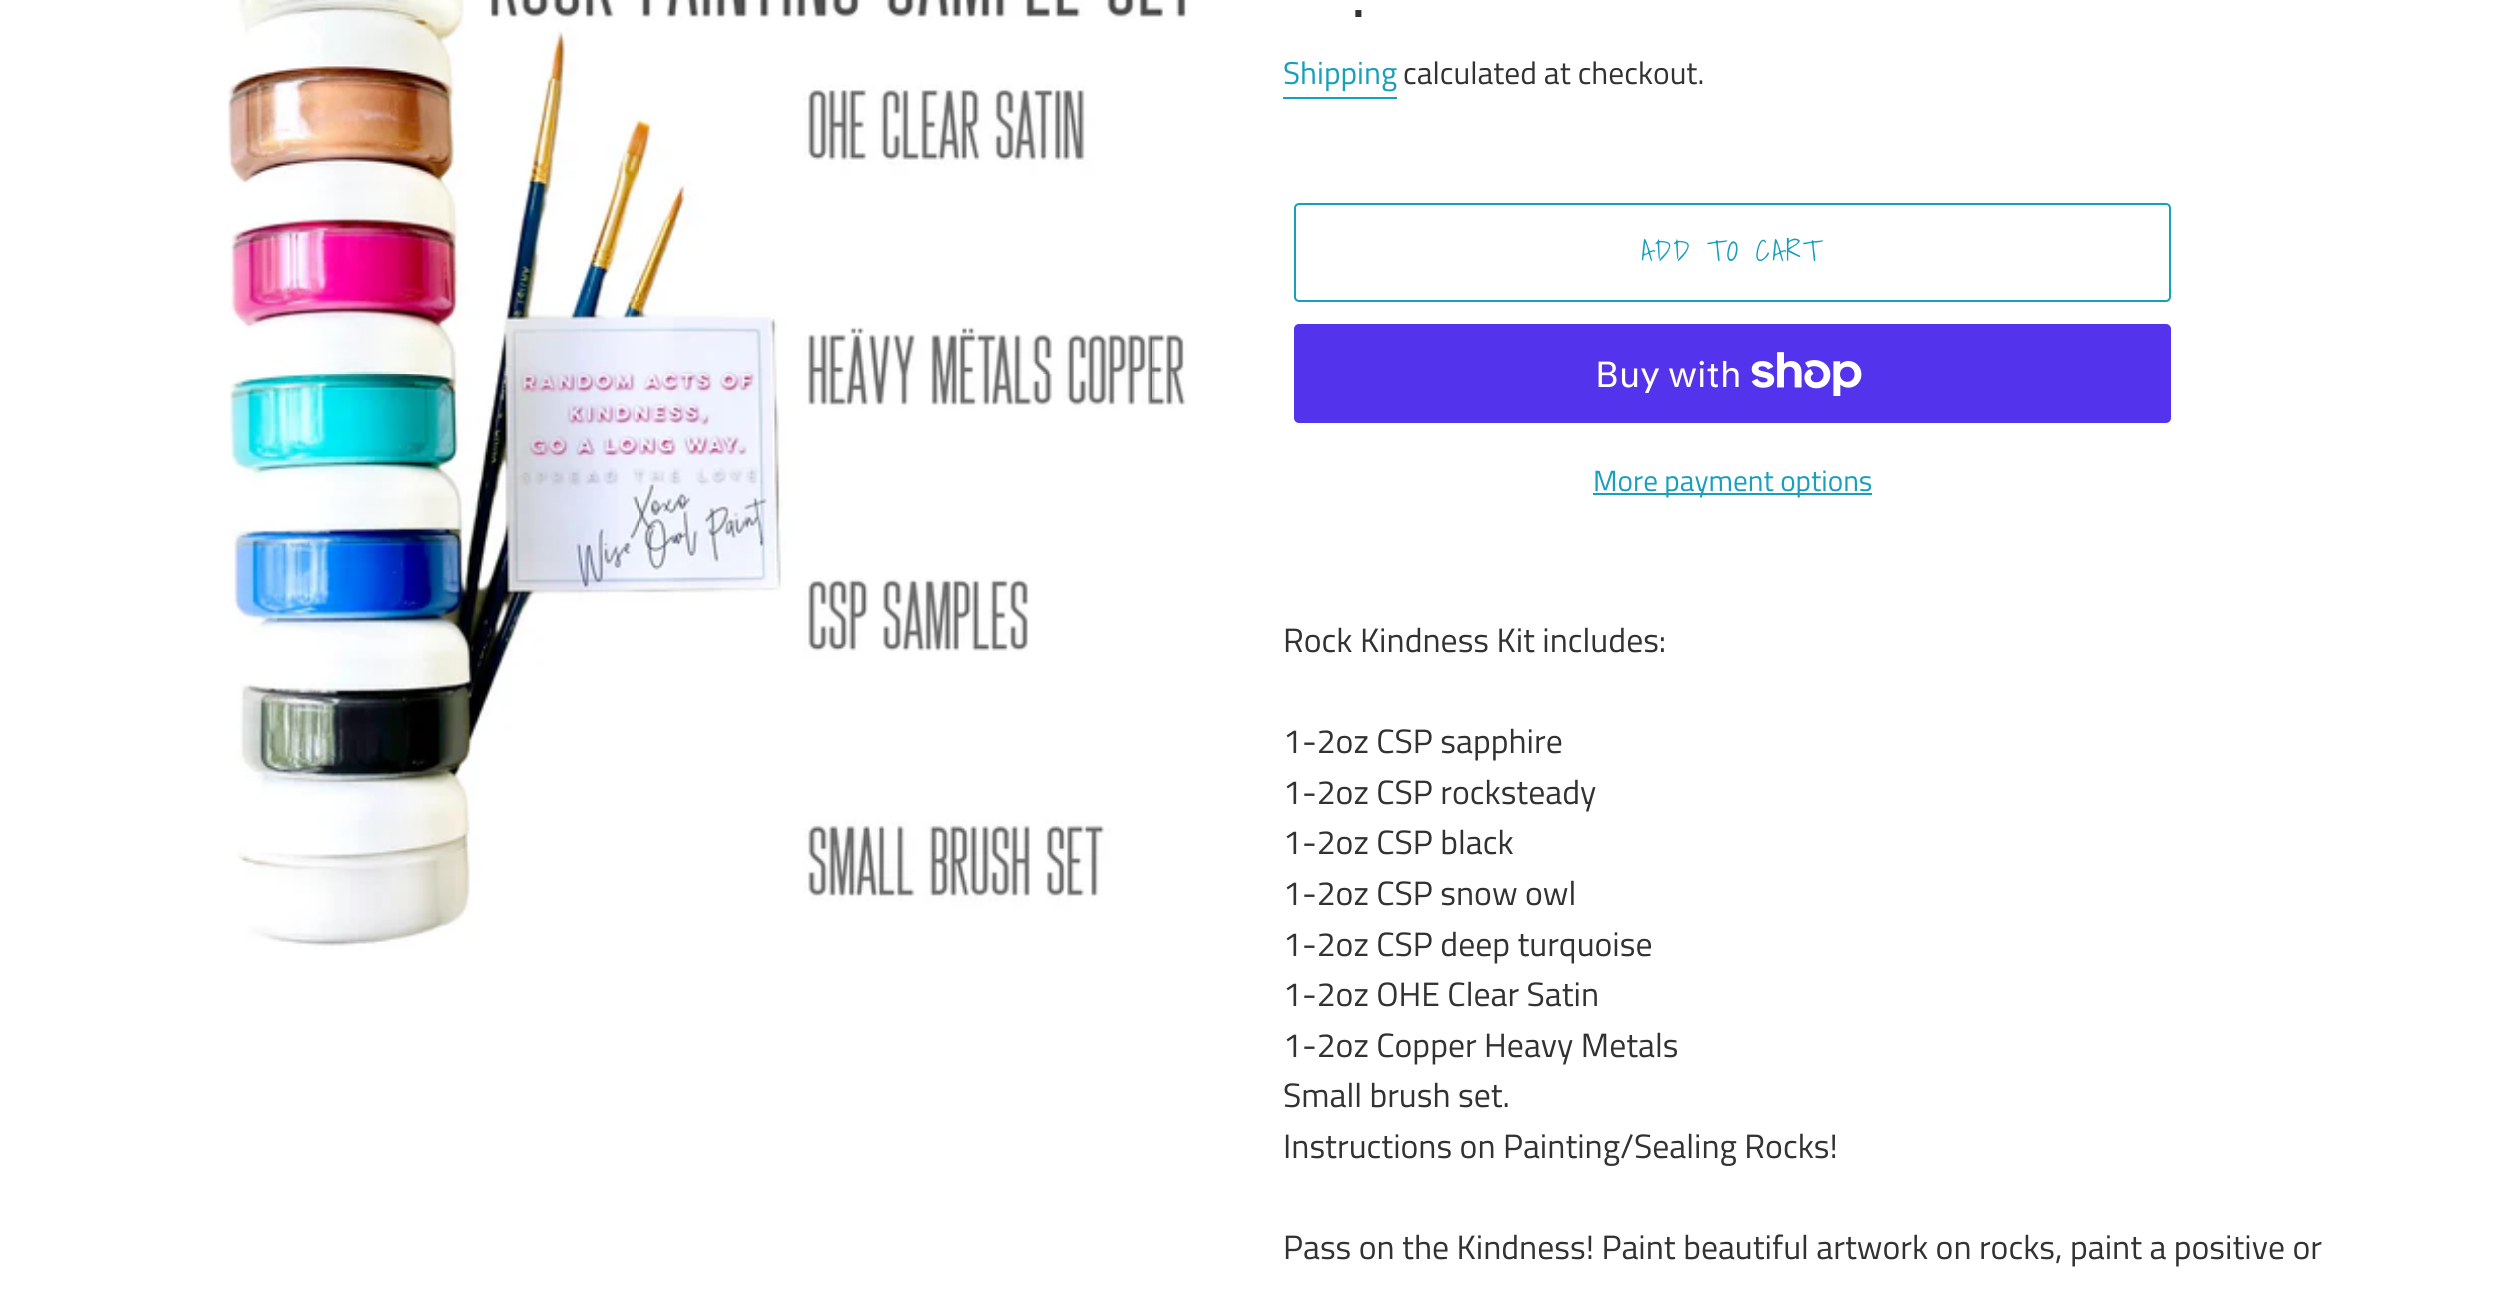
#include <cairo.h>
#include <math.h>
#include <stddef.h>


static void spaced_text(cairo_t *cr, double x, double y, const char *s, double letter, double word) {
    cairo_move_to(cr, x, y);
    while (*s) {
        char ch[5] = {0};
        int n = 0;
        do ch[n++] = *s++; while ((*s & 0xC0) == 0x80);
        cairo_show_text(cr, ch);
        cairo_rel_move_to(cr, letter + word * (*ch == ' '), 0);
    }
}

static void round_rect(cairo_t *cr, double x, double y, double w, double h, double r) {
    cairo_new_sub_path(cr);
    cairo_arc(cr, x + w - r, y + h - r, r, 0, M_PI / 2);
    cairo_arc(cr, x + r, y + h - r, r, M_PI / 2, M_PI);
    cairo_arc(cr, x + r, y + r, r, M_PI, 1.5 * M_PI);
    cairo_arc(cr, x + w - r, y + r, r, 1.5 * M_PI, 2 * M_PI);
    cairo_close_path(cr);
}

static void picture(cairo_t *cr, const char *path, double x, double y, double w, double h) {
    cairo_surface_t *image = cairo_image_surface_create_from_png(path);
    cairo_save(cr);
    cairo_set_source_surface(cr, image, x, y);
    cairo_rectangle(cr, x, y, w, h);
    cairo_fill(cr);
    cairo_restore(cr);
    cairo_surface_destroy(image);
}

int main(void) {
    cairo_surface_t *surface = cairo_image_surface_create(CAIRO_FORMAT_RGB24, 2497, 1290);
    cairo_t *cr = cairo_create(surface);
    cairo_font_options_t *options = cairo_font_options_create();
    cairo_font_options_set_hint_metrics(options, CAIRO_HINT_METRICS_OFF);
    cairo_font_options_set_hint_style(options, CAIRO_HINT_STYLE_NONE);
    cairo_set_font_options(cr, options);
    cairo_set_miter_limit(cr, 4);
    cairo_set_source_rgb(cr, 1, 1, 1);
    cairo_paint(cr);
    picture(cr, "img1.png", 228, 0, 960, 950);
    cairo_select_font_face(cr, "Titillium Web", CAIRO_FONT_SLANT_NORMAL, CAIRO_FONT_WEIGHT_BOLD);
    cairo_set_font_size(cr, 42);
    cairo_set_source_rgb(cr, 0.2, 0.196, 0.196);
    cairo_move_to(cr, 1353, 17);
    cairo_show_text(cr, ".");
    cairo_select_font_face(cr, "Titillium Web", CAIRO_FONT_SLANT_NORMAL, CAIRO_FONT_WEIGHT_NORMAL);
    cairo_set_font_size(cr, 31.5);
    cairo_set_source_rgb(cr, 0.094, 0.624, 0.737);
    cairo_move_to(cr, 1283, 84);
    cairo_show_text(cr, "Shipping");
    cairo_rectangle(cr, 1283, 97, 114, 2);
    cairo_fill(cr);
    cairo_set_source_rgb(cr, 0.2, 0.196, 0.196);
    cairo_move_to(cr, 1403, 84);
    cairo_show_text(cr, "calculated at checkout.");
    round_rect(cr, 1295, 204, 875, 97, 4);
    cairo_set_source_rgb(cr, 0.094, 0.624, 0.737);
    cairo_stroke(cr);
    cairo_select_font_face(cr, "Shadows Into Light", CAIRO_FONT_SLANT_NORMAL, CAIRO_FONT_WEIGHT_NORMAL);
    cairo_set_font_size(cr, 29.25);
    spaced_text(cr, 1641, 261, "ADD TO CART", 2.25, 0);
    cairo_set_source_rgb(cr, 0.329, 0.2, 0.922);
    round_rect(cr, 1294, 324, 877, 99, 5);
    cairo_fill(cr);
    cairo_select_font_face(cr, "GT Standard", CAIRO_FONT_SLANT_NORMAL, CAIRO_FONT_WEIGHT_NORMAL);
    cairo_set_font_size(cr, 36);
    cairo_set_source_rgb(cr, 1, 1, 1);
    cairo_move_to(cr, 1595, 387);
    cairo_show_text(cr, "Buy with");
    picture(cr, "img2.png", 1751, 352, 111, 44);
    cairo_set_source_rgb(cr, 0.094, 0.624, 0.737);
    cairo_rectangle(cr, 1593, 493, 279, 2);
    cairo_fill(cr);
    cairo_select_font_face(cr, "Titillium Web", CAIRO_FONT_SLANT_NORMAL, CAIRO_FONT_WEIGHT_NORMAL);
    cairo_set_font_size(cr, 29.25);
    cairo_move_to(cr, 1593, 491);
    cairo_show_text(cr, "More payment options");
    cairo_set_font_size(cr, 33.75);
    cairo_set_source_rgb(cr, 0.2, 0.196, 0.196);
    cairo_move_to(cr, 1283, 652);
    cairo_show_text(cr, "Rock Kindness Kit includes:");
    cairo_move_to(cr, 1283, 753);
    cairo_show_text(cr, "1-2oz CSP sapphire");
    cairo_move_to(cr, 1283, 804);
    cairo_show_text(cr, "1-2oz CSP rocksteady");
    cairo_move_to(cr, 1283, 854);
    cairo_show_text(cr, "1-2oz CSP black");
    cairo_move_to(cr, 1283, 905);
    cairo_show_text(cr, "1-2oz CSP snow owl");
    cairo_move_to(cr, 1283, 956);
    cairo_show_text(cr, "1-2oz CSP deep turquoise");
    cairo_move_to(cr, 1283, 1006);
    cairo_show_text(cr, "1-2oz OHE Clear Satin");
    cairo_move_to(cr, 1283, 1057);
    cairo_show_text(cr, "1-2oz Copper Heavy Metals");
    cairo_move_to(cr, 1283, 1107);
    cairo_show_text(cr, "Small brush set.");
    cairo_move_to(cr, 1283, 1158);
    cairo_show_text(cr, "Instructions on Painting/Sealing Rocks!");
    cairo_move_to(cr, 1283, 1259);
    cairo_show_text(cr, "Pass on the Kindness! Paint beautiful artwork on rocks, paint a positive or");
    cairo_surface_write_to_png(surface, "page.png");
    cairo_font_options_destroy(options);
    cairo_destroy(cr);
    cairo_surface_destroy(surface);
    return 0;
}
